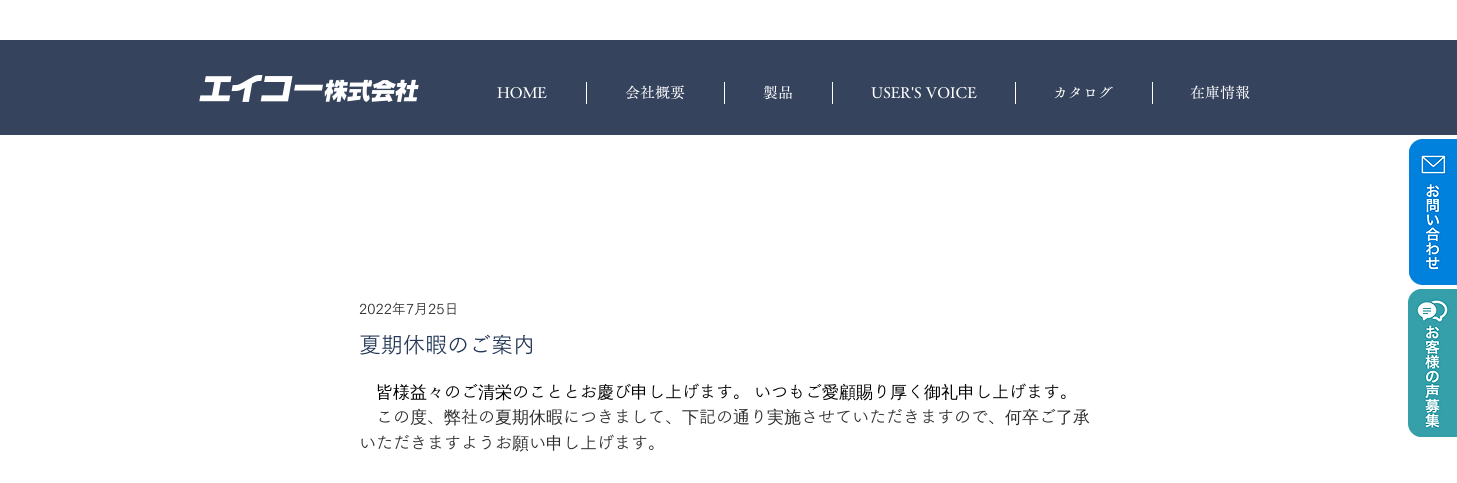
#include <cairo.h>
#include <math.h>
#include <stddef.h>


static void picture(cairo_t *cr, const char *path, double x, double y, double w, double h) {
    cairo_surface_t *image = cairo_image_surface_create_from_png(path);
    cairo_save(cr);
    cairo_set_source_surface(cr, image, x, y);
    cairo_rectangle(cr, x, y, w, h);
    cairo_fill(cr);
    cairo_restore(cr);
    cairo_surface_destroy(image);
}

int main(void) {
    cairo_surface_t *surface = cairo_image_surface_create(CAIRO_FORMAT_RGB24, 1457, 483);
    cairo_t *cr = cairo_create(surface);
    cairo_font_options_t *options = cairo_font_options_create();
    cairo_font_options_set_hint_metrics(options, CAIRO_HINT_METRICS_OFF);
    cairo_font_options_set_hint_style(options, CAIRO_HINT_STYLE_NONE);
    cairo_set_font_options(cr, options);
    cairo_set_miter_limit(cr, 4);
    cairo_set_source_rgb(cr, 1, 1, 1);
    cairo_paint(cr);
    cairo_set_source_rgb(cr, 0.208, 0.263, 0.365);
    cairo_rectangle(cr, 0, 40, 1457, 95);
    cairo_fill(cr);
    picture(cr, "img1.png", 199, 75, 220, 27);
    cairo_select_font_face(cr, "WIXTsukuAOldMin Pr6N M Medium", CAIRO_FONT_SLANT_NORMAL, CAIRO_FONT_WEIGHT_NORMAL);
    cairo_set_font_size(cr, 15);
    cairo_set_source_rgb(cr, 1, 1, 1);
    cairo_move_to(cr, 497, 98);
    cairo_show_text(cr, "HOME");
    cairo_rectangle(cr, 586, 82, 1, 22);
    cairo_fill(cr);
    cairo_move_to(cr, 625, 98);
    cairo_show_text(cr, "会社概要");
    cairo_rectangle(cr, 724, 82, 1, 22);
    cairo_fill(cr);
    cairo_move_to(cr, 763, 98);
    cairo_show_text(cr, "製品");
    cairo_rectangle(cr, 832, 82, 1, 22);
    cairo_fill(cr);
    cairo_move_to(cr, 871, 98);
    cairo_show_text(cr, "USER'S VOICE");
    cairo_rectangle(cr, 1015, 82, 1, 22);
    cairo_fill(cr);
    cairo_move_to(cr, 1053, 98);
    cairo_show_text(cr, "カタログ");
    cairo_rectangle(cr, 1152, 82, 1, 22);
    cairo_fill(cr);
    cairo_move_to(cr, 1190, 98);
    cairo_show_text(cr, "在庫情報");
    cairo_select_font_face(cr, "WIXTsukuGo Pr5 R", CAIRO_FONT_SLANT_NORMAL, CAIRO_FONT_WEIGHT_NORMAL);
    cairo_set_font_size(cr, 14);
    cairo_set_source_rgb(cr, 0.184, 0.184, 0.188);
    cairo_move_to(cr, 359, 314);
    cairo_show_text(cr, "2022年7月25日");
    cairo_set_font_size(cr, 22);
    cairo_set_source_rgb(cr, 0.141, 0.216, 0.341);
    cairo_move_to(cr, 359, 353);
    cairo_show_text(cr, "夏期休暇のご案内");
    cairo_select_font_face(cr, "WenQuanYi Zen Hei Medium", CAIRO_FONT_SLANT_NORMAL, CAIRO_FONT_WEIGHT_NORMAL);
    cairo_set_font_size(cr, 17);
    cairo_set_source_rgb(cr, 0, 0, 0);
    cairo_move_to(cr, 376, 398);
    cairo_show_text(cr, "皆様益々");
    cairo_select_font_face(cr, "WIXTsukuGo Pr5 R", CAIRO_FONT_SLANT_NORMAL, CAIRO_FONT_WEIGHT_NORMAL);
    cairo_move_to(cr, 444, 398);
    cairo_show_text(cr, "のご");
    cairo_select_font_face(cr, "WenQuanYi Zen Hei Medium", CAIRO_FONT_SLANT_NORMAL, CAIRO_FONT_WEIGHT_NORMAL);
    cairo_move_to(cr, 478, 398);
    cairo_show_text(cr, "清栄");
    cairo_select_font_face(cr, "WIXTsukuGo Pr5 R", CAIRO_FONT_SLANT_NORMAL, CAIRO_FONT_WEIGHT_NORMAL);
    cairo_move_to(cr, 512, 398);
    cairo_show_text(cr, "のこととお");
    cairo_select_font_face(cr, "WenQuanYi Zen Hei Medium", CAIRO_FONT_SLANT_NORMAL, CAIRO_FONT_WEIGHT_NORMAL);
    cairo_move_to(cr, 597, 398);
    cairo_show_text(cr, "慶");
    cairo_select_font_face(cr, "WIXTsukuGo Pr5 R", CAIRO_FONT_SLANT_NORMAL, CAIRO_FONT_WEIGHT_NORMAL);
    cairo_move_to(cr, 614, 398);
    cairo_show_text(cr, "び");
    cairo_select_font_face(cr, "WenQuanYi Zen Hei Medium", CAIRO_FONT_SLANT_NORMAL, CAIRO_FONT_WEIGHT_NORMAL);
    cairo_move_to(cr, 631, 398);
    cairo_show_text(cr, "申");
    cairo_select_font_face(cr, "WIXTsukuGo Pr5 R", CAIRO_FONT_SLANT_NORMAL, CAIRO_FONT_WEIGHT_NORMAL);
    cairo_move_to(cr, 648, 398);
    cairo_show_text(cr, "し上げます。");
    cairo_move_to(cr, 754, 398);
    cairo_show_text(cr, "いつもご");
    cairo_select_font_face(cr, "WenQuanYi Zen Hei Medium", CAIRO_FONT_SLANT_NORMAL, CAIRO_FONT_WEIGHT_NORMAL);
    cairo_move_to(cr, 822, 398);
    cairo_show_text(cr, "愛顧賜");
    cairo_select_font_face(cr, "WIXTsukuGo Pr5 R", CAIRO_FONT_SLANT_NORMAL, CAIRO_FONT_WEIGHT_NORMAL);
    cairo_move_to(cr, 873, 398);
    cairo_show_text(cr, "り");
    cairo_select_font_face(cr, "WenQuanYi Zen Hei Medium", CAIRO_FONT_SLANT_NORMAL, CAIRO_FONT_WEIGHT_NORMAL);
    cairo_move_to(cr, 890, 398);
    cairo_show_text(cr, "厚");
    cairo_select_font_face(cr, "WIXTsukuGo Pr5 R", CAIRO_FONT_SLANT_NORMAL, CAIRO_FONT_WEIGHT_NORMAL);
    cairo_move_to(cr, 907, 398);
    cairo_show_text(cr, "く");
    cairo_select_font_face(cr, "WenQuanYi Zen Hei Medium", CAIRO_FONT_SLANT_NORMAL, CAIRO_FONT_WEIGHT_NORMAL);
    cairo_move_to(cr, 924, 398);
    cairo_show_text(cr, "御礼申");
    cairo_select_font_face(cr, "WIXTsukuGo Pr5 R", CAIRO_FONT_SLANT_NORMAL, CAIRO_FONT_WEIGHT_NORMAL);
    cairo_move_to(cr, 975, 398);
    cairo_show_text(cr, "し上げます。");
    cairo_set_source_rgb(cr, 0.184, 0.184, 0.188);
    cairo_move_to(cr, 376, 423);
    cairo_show_text(cr, "この");
    cairo_select_font_face(cr, "WenQuanYi Zen Hei Medium", CAIRO_FONT_SLANT_NORMAL, CAIRO_FONT_WEIGHT_NORMAL);
    cairo_move_to(cr, 410, 423);
    cairo_show_text(cr, "度");
    cairo_select_font_face(cr, "WIXTsukuGo Pr5 R", CAIRO_FONT_SLANT_NORMAL, CAIRO_FONT_WEIGHT_NORMAL);
    cairo_move_to(cr, 427, 423);
    cairo_show_text(cr, "、");
    cairo_select_font_face(cr, "WenQuanYi Zen Hei Medium", CAIRO_FONT_SLANT_NORMAL, CAIRO_FONT_WEIGHT_NORMAL);
    cairo_move_to(cr, 444, 423);
    cairo_show_text(cr, "弊");
    cairo_select_font_face(cr, "WIXTsukuGo Pr5 R", CAIRO_FONT_SLANT_NORMAL, CAIRO_FONT_WEIGHT_NORMAL);
    cairo_move_to(cr, 461, 423);
    cairo_show_text(cr, "社の");
    cairo_select_font_face(cr, "WenQuanYi Zen Hei Medium", CAIRO_FONT_SLANT_NORMAL, CAIRO_FONT_WEIGHT_NORMAL);
    cairo_move_to(cr, 495, 423);
    cairo_show_text(cr, "夏期休暇");
    cairo_select_font_face(cr, "WIXTsukuGo Pr5 R", CAIRO_FONT_SLANT_NORMAL, CAIRO_FONT_WEIGHT_NORMAL);
    cairo_move_to(cr, 563, 423);
    cairo_show_text(cr, "につきまして、");
    cairo_select_font_face(cr, "WenQuanYi Zen Hei Medium", CAIRO_FONT_SLANT_NORMAL, CAIRO_FONT_WEIGHT_NORMAL);
    cairo_move_to(cr, 682, 423);
    cairo_show_text(cr, "下");
    cairo_select_font_face(cr, "WIXTsukuGo Pr5 R", CAIRO_FONT_SLANT_NORMAL, CAIRO_FONT_WEIGHT_NORMAL);
    cairo_move_to(cr, 699, 423);
    cairo_show_text(cr, "記の");
    cairo_select_font_face(cr, "WenQuanYi Zen Hei Medium", CAIRO_FONT_SLANT_NORMAL, CAIRO_FONT_WEIGHT_NORMAL);
    cairo_move_to(cr, 733, 423);
    cairo_show_text(cr, "通");
    cairo_select_font_face(cr, "WIXTsukuGo Pr5 R", CAIRO_FONT_SLANT_NORMAL, CAIRO_FONT_WEIGHT_NORMAL);
    cairo_move_to(cr, 750, 423);
    cairo_show_text(cr, "り");
    cairo_select_font_face(cr, "WenQuanYi Zen Hei Medium", CAIRO_FONT_SLANT_NORMAL, CAIRO_FONT_WEIGHT_NORMAL);
    cairo_move_to(cr, 767, 423);
    cairo_show_text(cr, "実施");
    cairo_select_font_face(cr, "WIXTsukuGo Pr5 R", CAIRO_FONT_SLANT_NORMAL, CAIRO_FONT_WEIGHT_NORMAL);
    cairo_move_to(cr, 801, 423);
    cairo_show_text(cr, "させていただきますので、");
    cairo_select_font_face(cr, "WenQuanYi Zen Hei Medium", CAIRO_FONT_SLANT_NORMAL, CAIRO_FONT_WEIGHT_NORMAL);
    cairo_move_to(cr, 1005, 423);
    cairo_show_text(cr, "何卒");
    cairo_select_font_face(cr, "WIXTsukuGo Pr5 R", CAIRO_FONT_SLANT_NORMAL, CAIRO_FONT_WEIGHT_NORMAL);
    cairo_move_to(cr, 1039, 423);
    cairo_show_text(cr, "ご");
    cairo_select_font_face(cr, "WenQuanYi Zen Hei Medium", CAIRO_FONT_SLANT_NORMAL, CAIRO_FONT_WEIGHT_NORMAL);
    cairo_move_to(cr, 1056, 423);
    cairo_show_text(cr, "了承");
    cairo_select_font_face(cr, "WIXTsukuGo Pr5 R", CAIRO_FONT_SLANT_NORMAL, CAIRO_FONT_WEIGHT_NORMAL);
    cairo_move_to(cr, 359, 449);
    cairo_show_text(cr, "いただきますようお");
    cairo_select_font_face(cr, "WenQuanYi Zen Hei Medium", CAIRO_FONT_SLANT_NORMAL, CAIRO_FONT_WEIGHT_NORMAL);
    cairo_move_to(cr, 512, 449);
    cairo_show_text(cr, "願");
    cairo_select_font_face(cr, "WIXTsukuGo Pr5 R", CAIRO_FONT_SLANT_NORMAL, CAIRO_FONT_WEIGHT_NORMAL);
    cairo_move_to(cr, 529, 449);
    cairo_show_text(cr, "い");
    cairo_select_font_face(cr, "WenQuanYi Zen Hei Medium", CAIRO_FONT_SLANT_NORMAL, CAIRO_FONT_WEIGHT_NORMAL);
    cairo_move_to(cr, 546, 449);
    cairo_show_text(cr, "申");
    cairo_select_font_face(cr, "WIXTsukuGo Pr5 R", CAIRO_FONT_SLANT_NORMAL, CAIRO_FONT_WEIGHT_NORMAL);
    cairo_move_to(cr, 563, 449);
    cairo_show_text(cr, "し上げます。");
    picture(cr, "img2.png", 1409, 139, 48, 146);
    picture(cr, "img3.png", 1408, 289, 49, 148);
    cairo_surface_write_to_png(surface, "page.png");
    cairo_font_options_destroy(options);
    cairo_destroy(cr);
    cairo_surface_destroy(surface);
    return 0;
}
